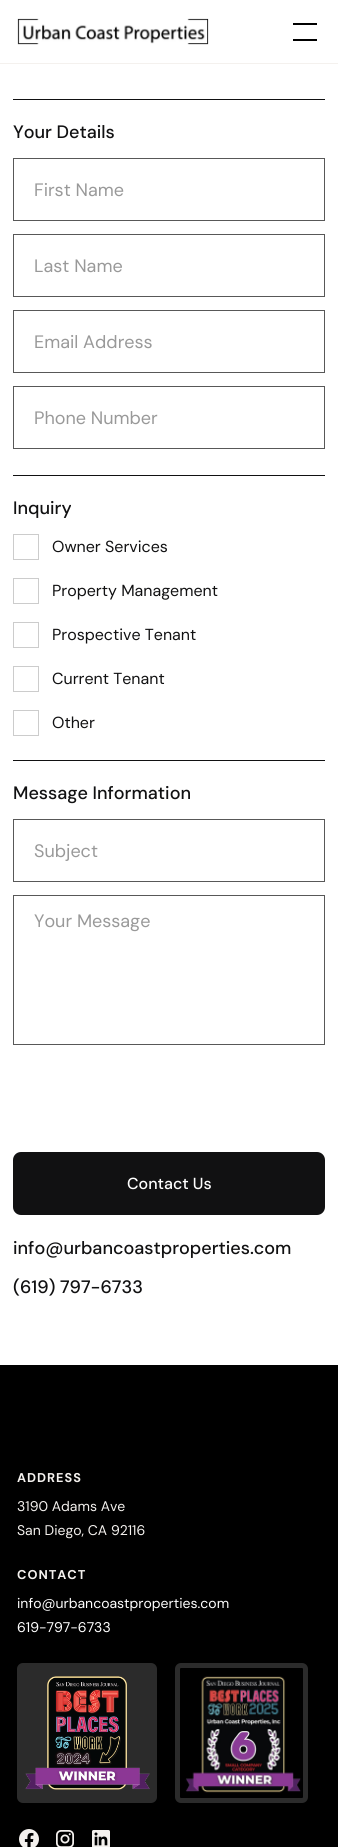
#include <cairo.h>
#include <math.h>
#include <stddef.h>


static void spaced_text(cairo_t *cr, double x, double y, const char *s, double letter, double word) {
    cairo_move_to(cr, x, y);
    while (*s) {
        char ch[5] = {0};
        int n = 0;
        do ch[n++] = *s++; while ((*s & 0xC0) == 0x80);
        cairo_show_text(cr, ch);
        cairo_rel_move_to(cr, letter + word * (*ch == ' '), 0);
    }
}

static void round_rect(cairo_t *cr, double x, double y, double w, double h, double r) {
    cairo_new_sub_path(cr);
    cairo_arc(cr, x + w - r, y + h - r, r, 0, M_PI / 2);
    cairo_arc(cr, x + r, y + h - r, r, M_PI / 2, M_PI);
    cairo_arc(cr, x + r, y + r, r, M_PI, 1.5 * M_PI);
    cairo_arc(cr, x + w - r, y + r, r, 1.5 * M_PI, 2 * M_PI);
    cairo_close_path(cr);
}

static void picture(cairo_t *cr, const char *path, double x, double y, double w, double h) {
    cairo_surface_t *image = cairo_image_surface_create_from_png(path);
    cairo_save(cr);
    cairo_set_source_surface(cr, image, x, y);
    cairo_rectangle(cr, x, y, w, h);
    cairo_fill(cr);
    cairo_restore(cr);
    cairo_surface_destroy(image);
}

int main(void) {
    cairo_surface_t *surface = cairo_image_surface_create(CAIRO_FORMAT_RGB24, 338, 1847);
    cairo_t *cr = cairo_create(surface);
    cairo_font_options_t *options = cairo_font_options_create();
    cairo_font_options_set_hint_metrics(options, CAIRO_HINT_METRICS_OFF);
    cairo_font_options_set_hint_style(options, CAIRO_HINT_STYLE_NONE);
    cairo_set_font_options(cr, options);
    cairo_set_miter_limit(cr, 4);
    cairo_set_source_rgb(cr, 1, 1, 1);
    cairo_paint(cr);
    cairo_set_source_rgb(cr, 0.957, 0.945, 0.933);
    cairo_rectangle(cr, 0, 63, 338, 1);
    cairo_fill(cr);
    picture(cr, "img1.png", 17, 18, 192, 27);
    cairo_set_source_rgb(cr, 0, 0, 0);
    cairo_rectangle(cr, 293, 23, 24, 2);
    cairo_fill(cr);
    cairo_rectangle(cr, 293, 39, 24, 2);
    cairo_fill(cr);
    cairo_set_source_rgb(cr, 0.067, 0.067, 0.071);
    cairo_rectangle(cr, 13, 99, 312, 1);
    cairo_fill(cr);
    cairo_select_font_face(cr, "DM Sans Medium", CAIRO_FONT_SLANT_NORMAL, CAIRO_FONT_WEIGHT_NORMAL);
    cairo_set_font_size(cr, 18);
    cairo_move_to(cr, 13, 138);
    cairo_show_text(cr, "Your Details");
    cairo_rectangle(cr, 13.5, 158.5, 311, 62);
    cairo_set_source_rgb(cr, 0.345, 0.345, 0.345);
    cairo_set_line_width(cr, 1);
    cairo_stroke(cr);
    cairo_select_font_face(cr, "DM Sans", CAIRO_FONT_SLANT_NORMAL, CAIRO_FONT_WEIGHT_NORMAL);
    cairo_set_source_rgb(cr, 0.6, 0.6, 0.6);
    cairo_move_to(cr, 34, 196);
    cairo_show_text(cr, "First Name");
    cairo_rectangle(cr, 13.5, 234.5, 311, 62);
    cairo_set_source_rgb(cr, 0.345, 0.345, 0.345);
    cairo_stroke(cr);
    cairo_set_source_rgb(cr, 0.6, 0.6, 0.6);
    cairo_move_to(cr, 34, 272);
    cairo_show_text(cr, "Last Name");
    cairo_rectangle(cr, 13.5, 310.5, 311, 62);
    cairo_set_source_rgb(cr, 0.345, 0.345, 0.345);
    cairo_stroke(cr);
    cairo_set_source_rgb(cr, 0.6, 0.6, 0.6);
    cairo_move_to(cr, 34, 348);
    cairo_show_text(cr, "Email Address");
    cairo_rectangle(cr, 13.5, 386.5, 311, 62);
    cairo_set_source_rgb(cr, 0.345, 0.345, 0.345);
    cairo_stroke(cr);
    cairo_set_source_rgb(cr, 0.6, 0.6, 0.6);
    cairo_move_to(cr, 34, 424);
    cairo_show_text(cr, "Phone Number");
    cairo_set_source_rgb(cr, 0.067, 0.067, 0.071);
    cairo_rectangle(cr, 13, 475, 312, 1);
    cairo_fill(cr);
    cairo_select_font_face(cr, "DM Sans Medium", CAIRO_FONT_SLANT_NORMAL, CAIRO_FONT_WEIGHT_NORMAL);
    cairo_move_to(cr, 13, 514);
    cairo_show_text(cr, "Inquiry");
    cairo_rectangle(cr, 13.5, 534.5, 25, 25);
    cairo_set_source_rgb(cr, 0.8, 0.8, 0.8);
    cairo_stroke(cr);
    cairo_select_font_face(cr, "DM Sans", CAIRO_FONT_SLANT_NORMAL, CAIRO_FONT_WEIGHT_NORMAL);
    cairo_set_font_size(cr, 16);
    cairo_set_source_rgb(cr, 0.067, 0.067, 0.071);
    cairo_move_to(cr, 52, 552);
    cairo_show_text(cr, "Owner Services");
    cairo_rectangle(cr, 13.5, 578.5, 25, 25);
    cairo_set_source_rgb(cr, 0.8, 0.8, 0.8);
    cairo_stroke(cr);
    cairo_set_source_rgb(cr, 0.067, 0.067, 0.071);
    cairo_move_to(cr, 52, 596);
    cairo_show_text(cr, "Property Management");
    cairo_rectangle(cr, 13.5, 622.5, 25, 25);
    cairo_set_source_rgb(cr, 0.8, 0.8, 0.8);
    cairo_stroke(cr);
    cairo_set_source_rgb(cr, 0.067, 0.067, 0.071);
    cairo_move_to(cr, 52, 640);
    cairo_show_text(cr, "Prospective Tenant");
    cairo_rectangle(cr, 13.5, 666.5, 25, 25);
    cairo_set_source_rgb(cr, 0.8, 0.8, 0.8);
    cairo_stroke(cr);
    cairo_set_source_rgb(cr, 0.067, 0.067, 0.071);
    cairo_move_to(cr, 52, 684);
    cairo_show_text(cr, "Current Tenant");
    cairo_rectangle(cr, 13.5, 710.5, 25, 25);
    cairo_set_source_rgb(cr, 0.8, 0.8, 0.8);
    cairo_stroke(cr);
    cairo_set_source_rgb(cr, 0.067, 0.067, 0.071);
    cairo_move_to(cr, 52, 728);
    cairo_show_text(cr, "Other");
    cairo_rectangle(cr, 13, 760, 312, 1);
    cairo_fill(cr);
    cairo_select_font_face(cr, "DM Sans Medium", CAIRO_FONT_SLANT_NORMAL, CAIRO_FONT_WEIGHT_NORMAL);
    cairo_set_font_size(cr, 18);
    cairo_move_to(cr, 13, 799);
    cairo_show_text(cr, "Message Information");
    cairo_rectangle(cr, 13.5, 819.5, 311, 62);
    cairo_set_source_rgb(cr, 0.345, 0.345, 0.345);
    cairo_stroke(cr);
    cairo_select_font_face(cr, "DM Sans", CAIRO_FONT_SLANT_NORMAL, CAIRO_FONT_WEIGHT_NORMAL);
    cairo_set_source_rgb(cr, 0.6, 0.6, 0.6);
    cairo_move_to(cr, 34, 857);
    cairo_show_text(cr, "Subject");
    cairo_rectangle(cr, 13.5, 895.5, 311, 149);
    cairo_set_source_rgb(cr, 0.345, 0.345, 0.345);
    cairo_stroke(cr);
    cairo_set_source_rgb(cr, 0.6, 0.6, 0.6);
    cairo_move_to(cr, 34, 927);
    cairo_show_text(cr, "Your Message");
    cairo_set_source_rgb(cr, 0.067, 0.067, 0.071);
    round_rect(cr, 13, 1152, 312, 63, 8);
    cairo_fill(cr);
    cairo_select_font_face(cr, "DM Sans Medium", CAIRO_FONT_SLANT_NORMAL, CAIRO_FONT_WEIGHT_NORMAL);
    cairo_set_font_size(cr, 16);
    cairo_set_source_rgb(cr, 1, 1, 1);
    cairo_move_to(cr, 127, 1189);
    cairo_show_text(cr, "Contact Us");
    cairo_set_font_size(cr, 18);
    cairo_set_source_rgb(cr, 0.067, 0.067, 0.071);
    cairo_move_to(cr, 13, 1254);
    cairo_show_text(cr, "info@urbancoastproperties.com");
    cairo_move_to(cr, 13, 1293);
    cairo_show_text(cr, "(619) 797-6733");
    cairo_set_source_rgb(cr, 0, 0, 0);
    cairo_rectangle(cr, 0, 1365, 338, 482);
    cairo_fill(cr);
    cairo_select_font_face(cr, "DM Sans", CAIRO_FONT_SLANT_NORMAL, CAIRO_FONT_WEIGHT_BOLD);
    cairo_set_font_size(cr, 12.75);
    cairo_set_source_rgb(cr, 0.957, 0.945, 0.933);
    spaced_text(cr, 17, 1482, "ADDRESS", 1, 0);
    cairo_select_font_face(cr, "DM Sans", CAIRO_FONT_SLANT_NORMAL, CAIRO_FONT_WEIGHT_NORMAL);
    cairo_set_font_size(cr, 14);
    cairo_move_to(cr, 17, 1511);
    cairo_show_text(cr, "3190 Adams Ave");
    cairo_move_to(cr, 17, 1535);
    cairo_show_text(cr, "San Diego, CA 92116");
    cairo_select_font_face(cr, "DM Sans", CAIRO_FONT_SLANT_NORMAL, CAIRO_FONT_WEIGHT_BOLD);
    cairo_set_font_size(cr, 12.75);
    spaced_text(cr, 17, 1579, "CONTACT", 1, 0);
    cairo_select_font_face(cr, "DM Sans", CAIRO_FONT_SLANT_NORMAL, CAIRO_FONT_WEIGHT_NORMAL);
    cairo_set_font_size(cr, 14);
    cairo_set_source_rgb(cr, 1, 1, 1);
    cairo_move_to(cr, 17, 1608);
    cairo_show_text(cr, "info@urbancoastproperties.com");
    cairo_move_to(cr, 17, 1632);
    cairo_show_text(cr, "619-797-6733");
    cairo_set_source_rgb(cr, 0.169, 0.169, 0.169);
    round_rect(cr, 17, 1663, 140, 140, 6);
    cairo_fill(cr);
    picture(cr, "img2.png", 25, 1676, 125, 114);
    round_rect(cr, 175, 1663, 133, 140, 6);
    cairo_fill(cr);
    picture(cr, "img3.png", 180, 1668, 123, 130);
    picture(cr, "img4.png", 19, 1829, 20, 18);
    picture(cr, "img5.png", 56, 1830, 18, 17);
    picture(cr, "img6.png", 92, 1830, 18, 17);
    cairo_surface_write_to_png(surface, "page.png");
    cairo_font_options_destroy(options);
    cairo_destroy(cr);
    cairo_surface_destroy(surface);
    return 0;
}
